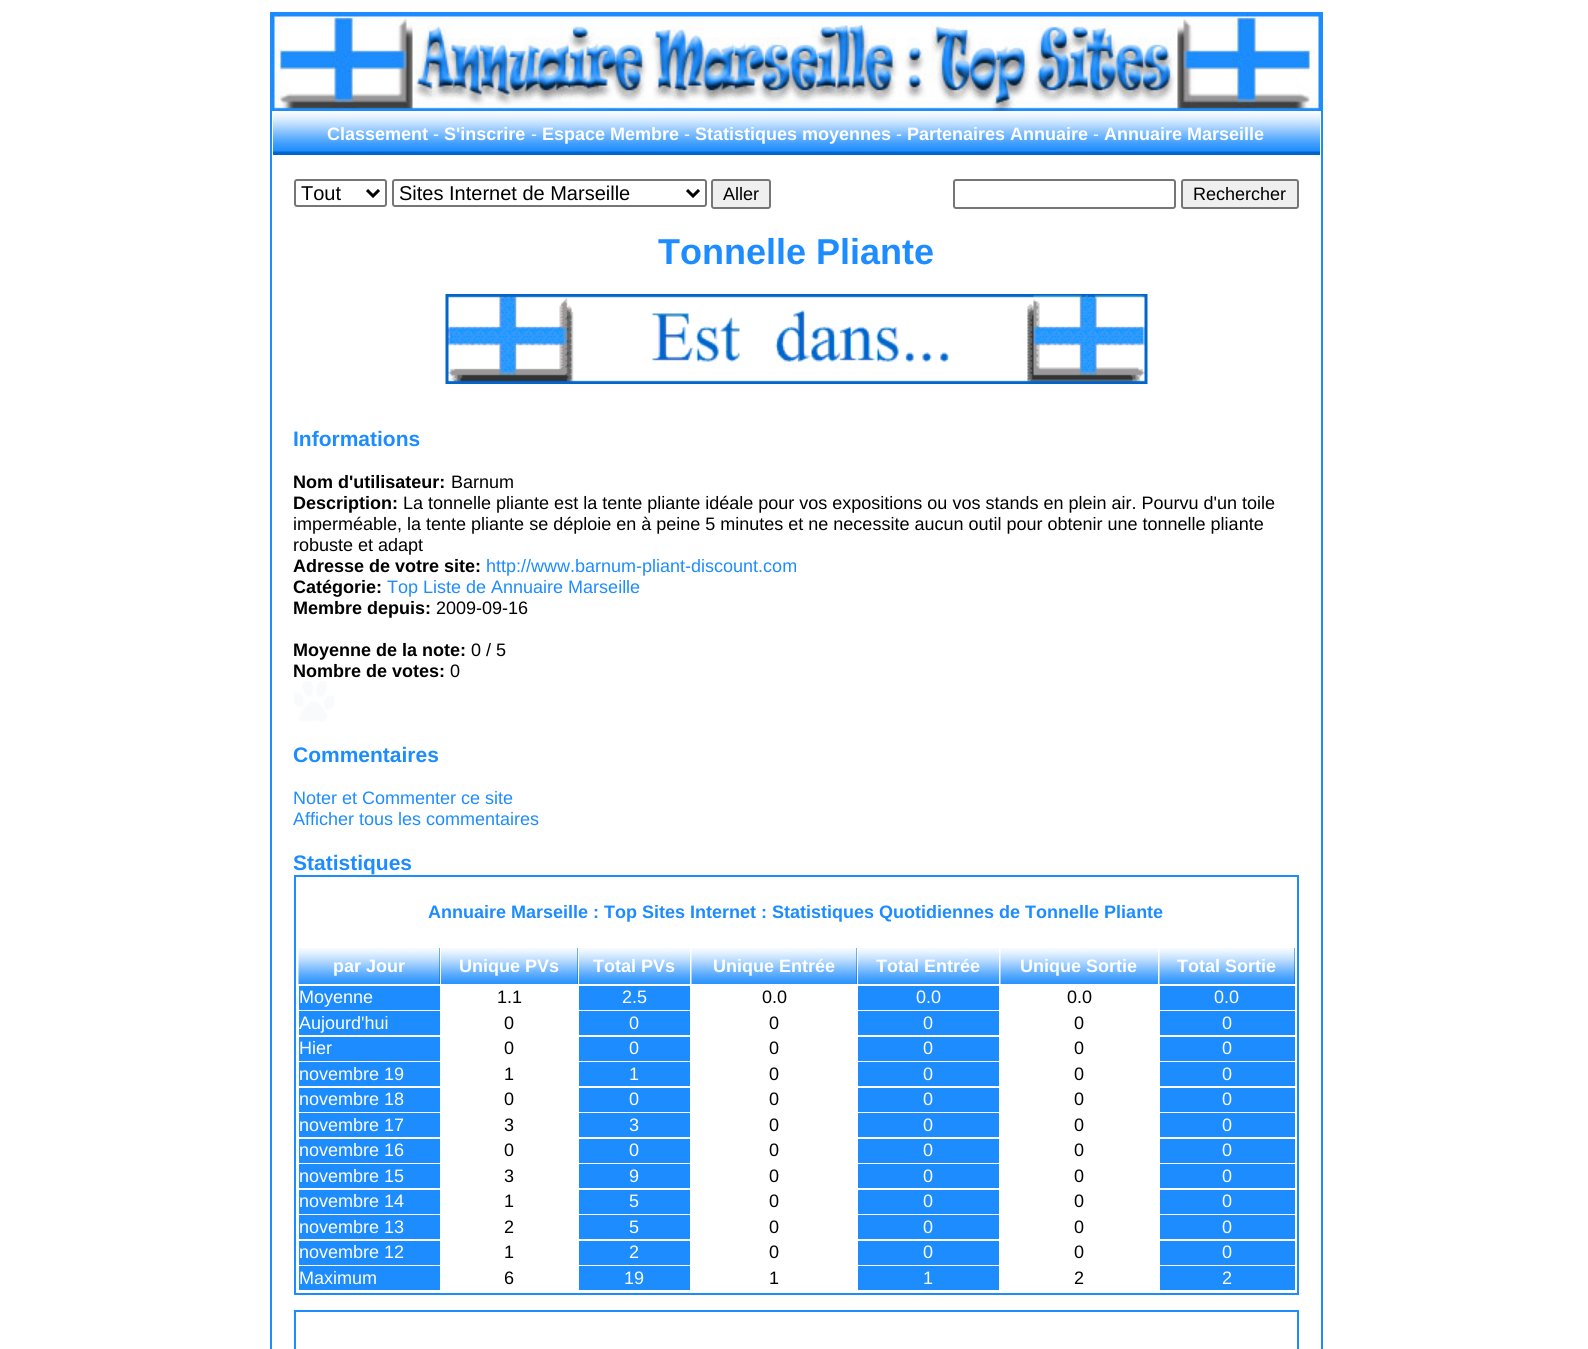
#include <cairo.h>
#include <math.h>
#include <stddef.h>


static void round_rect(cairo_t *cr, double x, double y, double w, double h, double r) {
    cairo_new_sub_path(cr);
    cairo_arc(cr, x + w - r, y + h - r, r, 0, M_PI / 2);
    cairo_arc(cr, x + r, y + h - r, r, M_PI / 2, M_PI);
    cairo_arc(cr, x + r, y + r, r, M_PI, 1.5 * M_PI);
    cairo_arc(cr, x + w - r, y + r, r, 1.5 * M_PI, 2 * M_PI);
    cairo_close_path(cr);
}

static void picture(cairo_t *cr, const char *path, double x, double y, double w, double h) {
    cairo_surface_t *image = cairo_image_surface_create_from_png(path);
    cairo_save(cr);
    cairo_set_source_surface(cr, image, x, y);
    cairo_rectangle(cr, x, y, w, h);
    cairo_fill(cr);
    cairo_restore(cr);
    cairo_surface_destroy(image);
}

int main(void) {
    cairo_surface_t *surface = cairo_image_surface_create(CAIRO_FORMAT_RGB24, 1588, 1349);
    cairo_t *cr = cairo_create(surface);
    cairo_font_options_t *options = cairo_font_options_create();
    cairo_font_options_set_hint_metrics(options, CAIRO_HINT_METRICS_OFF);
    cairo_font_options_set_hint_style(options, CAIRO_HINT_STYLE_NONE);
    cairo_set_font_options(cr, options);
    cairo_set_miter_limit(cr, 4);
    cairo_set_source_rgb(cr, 1, 1, 1);
    cairo_paint(cr);
    cairo_rectangle(cr, 271, 13, 1051, 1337);
    cairo_set_source_rgb(cr, 0.114, 0.549, 0.996);
    cairo_stroke(cr);
    picture(cr, "img1.png", 271, 13, 1051, 98);
    cairo_set_source_rgb(cr, 0, 0.4, 0.8);
    cairo_rectangle(cr, 273, 151, 1047, 4);
    cairo_fill(cr);
    picture(cr, "img2.png", 273, 112, 1047, 40);
    cairo_select_font_face(cr, "Liberation Sans", CAIRO_FONT_SLANT_NORMAL, CAIRO_FONT_WEIGHT_BOLD);
    cairo_set_font_size(cr, 18);
    cairo_set_source_rgb(cr, 1, 1, 1);
    cairo_move_to(cr, 327, 140);
    cairo_show_text(cr, "Classement");
    cairo_select_font_face(cr, "Liberation Sans", CAIRO_FONT_SLANT_NORMAL, CAIRO_FONT_WEIGHT_NORMAL);
    cairo_move_to(cr, 433, 140);
    cairo_show_text(cr, "-");
    cairo_select_font_face(cr, "Liberation Sans", CAIRO_FONT_SLANT_NORMAL, CAIRO_FONT_WEIGHT_BOLD);
    cairo_move_to(cr, 444, 140);
    cairo_show_text(cr, "S'inscrire");
    cairo_select_font_face(cr, "Liberation Sans", CAIRO_FONT_SLANT_NORMAL, CAIRO_FONT_WEIGHT_NORMAL);
    cairo_move_to(cr, 531, 140);
    cairo_show_text(cr, "-");
    cairo_select_font_face(cr, "Liberation Sans", CAIRO_FONT_SLANT_NORMAL, CAIRO_FONT_WEIGHT_BOLD);
    cairo_move_to(cr, 542, 140);
    cairo_show_text(cr, "Espace Membre");
    cairo_select_font_face(cr, "Liberation Sans", CAIRO_FONT_SLANT_NORMAL, CAIRO_FONT_WEIGHT_NORMAL);
    cairo_move_to(cr, 684, 140);
    cairo_show_text(cr, "-");
    cairo_select_font_face(cr, "Liberation Sans", CAIRO_FONT_SLANT_NORMAL, CAIRO_FONT_WEIGHT_BOLD);
    cairo_move_to(cr, 695, 140);
    cairo_show_text(cr, "Statistiques moyennes");
    cairo_select_font_face(cr, "Liberation Sans", CAIRO_FONT_SLANT_NORMAL, CAIRO_FONT_WEIGHT_NORMAL);
    cairo_move_to(cr, 896, 140);
    cairo_show_text(cr, "-");
    cairo_select_font_face(cr, "Liberation Sans", CAIRO_FONT_SLANT_NORMAL, CAIRO_FONT_WEIGHT_BOLD);
    cairo_move_to(cr, 907, 140);
    cairo_show_text(cr, "Partenaires Annuaire");
    cairo_select_font_face(cr, "Liberation Sans", CAIRO_FONT_SLANT_NORMAL, CAIRO_FONT_WEIGHT_NORMAL);
    cairo_move_to(cr, 1093, 140);
    cairo_show_text(cr, "-");
    cairo_select_font_face(cr, "Liberation Sans", CAIRO_FONT_SLANT_NORMAL, CAIRO_FONT_WEIGHT_BOLD);
    cairo_move_to(cr, 1104, 140);
    cairo_show_text(cr, "Annuaire Marseille");
    round_rect(cr, 295, 180, 91, 26, 2);
    cairo_set_source_rgb(cr, 0.463, 0.463, 0.463);
    cairo_stroke(cr);
    cairo_new_path(cr);
    cairo_move_to(cr, 367, 190);
    cairo_line_to(cr, 373, 196);
    cairo_line_to(cr, 379, 190);
    cairo_set_source_rgb(cr, 0, 0, 0);
    cairo_set_line_width(cr, 3);
    cairo_stroke(cr);
    cairo_select_font_face(cr, "Liberation Sans", CAIRO_FONT_SLANT_NORMAL, CAIRO_FONT_WEIGHT_NORMAL);
    cairo_set_font_size(cr, 20);
    cairo_move_to(cr, 301, 200);
    cairo_show_text(cr, "Tout");
    round_rect(cr, 393, 180, 313, 26, 2);
    cairo_set_source_rgb(cr, 0.463, 0.463, 0.463);
    cairo_set_line_width(cr, 2);
    cairo_stroke(cr);
    cairo_new_path(cr);
    cairo_move_to(cr, 687, 190);
    cairo_line_to(cr, 693, 196);
    cairo_line_to(cr, 699, 190);
    cairo_set_source_rgb(cr, 0, 0, 0);
    cairo_set_line_width(cr, 3);
    cairo_stroke(cr);
    cairo_move_to(cr, 399, 200);
    cairo_show_text(cr, "Sites Internet de Marseille");
    cairo_set_source_rgb(cr, 0.937, 0.937, 0.937);
    round_rect(cr, 712, 180, 58, 28, 2);
    cairo_fill_preserve(cr);
    cairo_set_source_rgb(cr, 0.463, 0.463, 0.463);
    cairo_set_line_width(cr, 2);
    cairo_stroke(cr);
    cairo_set_font_size(cr, 18);
    cairo_set_source_rgb(cr, 0, 0, 0);
    cairo_move_to(cr, 723, 200);
    cairo_show_text(cr, "Aller");
    round_rect(cr, 954, 180, 221, 28, 2);
    cairo_set_source_rgb(cr, 0.463, 0.463, 0.463);
    cairo_stroke(cr);
    cairo_set_source_rgb(cr, 0.937, 0.937, 0.937);
    round_rect(cr, 1182, 180, 116, 28, 2);
    cairo_fill_preserve(cr);
    cairo_set_source_rgb(cr, 0.463, 0.463, 0.463);
    cairo_stroke(cr);
    cairo_set_source_rgb(cr, 0, 0, 0);
    cairo_move_to(cr, 1193, 200);
    cairo_show_text(cr, "Rechercher");
    cairo_select_font_face(cr, "Liberation Sans", CAIRO_FONT_SLANT_NORMAL, CAIRO_FONT_WEIGHT_BOLD);
    cairo_set_font_size(cr, 36);
    cairo_set_source_rgb(cr, 0.114, 0.549, 0.996);
    cairo_move_to(cr, 658, 264);
    cairo_show_text(cr, "Tonnelle Pliante");
    picture(cr, "img3.png", 445, 294, 703, 90);
    cairo_set_font_size(cr, 21);
    cairo_move_to(cr, 293, 446);
    cairo_show_text(cr, "Informations");
    cairo_set_font_size(cr, 18);
    cairo_set_source_rgb(cr, 0, 0, 0);
    cairo_move_to(cr, 293, 488);
    cairo_show_text(cr, "Nom d'utilisateur:");
    cairo_select_font_face(cr, "Liberation Sans", CAIRO_FONT_SLANT_NORMAL, CAIRO_FONT_WEIGHT_NORMAL);
    cairo_move_to(cr, 451, 488);
    cairo_show_text(cr, "Barnum");
    cairo_select_font_face(cr, "Liberation Sans", CAIRO_FONT_SLANT_NORMAL, CAIRO_FONT_WEIGHT_BOLD);
    cairo_move_to(cr, 293, 509);
    cairo_show_text(cr, "Description:");
    cairo_select_font_face(cr, "Liberation Sans", CAIRO_FONT_SLANT_NORMAL, CAIRO_FONT_WEIGHT_NORMAL);
    cairo_move_to(cr, 403, 509);
    cairo_show_text(cr, "La tonnelle pliante est la tente pliante idéale pour vos expositions ou vos stands en plein air. Pourvu d'un toile");
    cairo_move_to(cr, 293, 530);
    cairo_show_text(cr, "imperméable, la tente pliante se déploie en à peine 5 minutes et ne necessite aucun outil pour obtenir une tonnelle pliante");
    cairo_move_to(cr, 293, 551);
    cairo_show_text(cr, "robuste et adapt");
    cairo_select_font_face(cr, "Liberation Sans", CAIRO_FONT_SLANT_NORMAL, CAIRO_FONT_WEIGHT_BOLD);
    cairo_move_to(cr, 293, 572);
    cairo_show_text(cr, "Adresse de votre site:");
    cairo_select_font_face(cr, "Liberation Sans", CAIRO_FONT_SLANT_NORMAL, CAIRO_FONT_WEIGHT_NORMAL);
    cairo_set_source_rgb(cr, 0.114, 0.549, 0.996);
    cairo_move_to(cr, 486, 572);
    cairo_show_text(cr, "http://www.barnum-pliant-discount.com");
    cairo_select_font_face(cr, "Liberation Sans", CAIRO_FONT_SLANT_NORMAL, CAIRO_FONT_WEIGHT_BOLD);
    cairo_set_source_rgb(cr, 0, 0, 0);
    cairo_move_to(cr, 293, 593);
    cairo_show_text(cr, "Catégorie:");
    cairo_select_font_face(cr, "Liberation Sans", CAIRO_FONT_SLANT_NORMAL, CAIRO_FONT_WEIGHT_NORMAL);
    cairo_set_source_rgb(cr, 0.114, 0.549, 0.996);
    cairo_move_to(cr, 387, 593);
    cairo_show_text(cr, "Top Liste de Annuaire Marseille");
    cairo_select_font_face(cr, "Liberation Sans", CAIRO_FONT_SLANT_NORMAL, CAIRO_FONT_WEIGHT_BOLD);
    cairo_set_source_rgb(cr, 0, 0, 0);
    cairo_move_to(cr, 293, 614);
    cairo_show_text(cr, "Membre depuis:");
    cairo_select_font_face(cr, "Liberation Sans", CAIRO_FONT_SLANT_NORMAL, CAIRO_FONT_WEIGHT_NORMAL);
    cairo_move_to(cr, 436, 614);
    cairo_show_text(cr, "2009-09-16");
    cairo_select_font_face(cr, "Liberation Sans", CAIRO_FONT_SLANT_NORMAL, CAIRO_FONT_WEIGHT_BOLD);
    cairo_move_to(cr, 293, 656);
    cairo_show_text(cr, "Moyenne de la note:");
    cairo_select_font_face(cr, "Liberation Sans", CAIRO_FONT_SLANT_NORMAL, CAIRO_FONT_WEIGHT_NORMAL);
    cairo_move_to(cr, 471, 656);
    cairo_show_text(cr, "0 / 5");
    cairo_select_font_face(cr, "Liberation Sans", CAIRO_FONT_SLANT_NORMAL, CAIRO_FONT_WEIGHT_BOLD);
    cairo_move_to(cr, 293, 677);
    cairo_show_text(cr, "Nombre de votes:");
    cairo_select_font_face(cr, "Liberation Sans", CAIRO_FONT_SLANT_NORMAL, CAIRO_FONT_WEIGHT_NORMAL);
    cairo_move_to(cr, 450, 677);
    cairo_show_text(cr, "0");
    picture(cr, "img4.png", 294, 681, 41, 41);
    cairo_select_font_face(cr, "Liberation Sans", CAIRO_FONT_SLANT_NORMAL, CAIRO_FONT_WEIGHT_BOLD);
    cairo_set_font_size(cr, 21);
    cairo_set_source_rgb(cr, 0.114, 0.549, 0.996);
    cairo_move_to(cr, 293, 762);
    cairo_show_text(cr, "Commentaires");
    cairo_select_font_face(cr, "Liberation Sans", CAIRO_FONT_SLANT_NORMAL, CAIRO_FONT_WEIGHT_NORMAL);
    cairo_set_font_size(cr, 18);
    cairo_move_to(cr, 293, 804);
    cairo_show_text(cr, "Noter et Commenter ce site");
    cairo_move_to(cr, 293, 825);
    cairo_show_text(cr, "Afficher tous les commentaires");
    cairo_select_font_face(cr, "Liberation Sans", CAIRO_FONT_SLANT_NORMAL, CAIRO_FONT_WEIGHT_BOLD);
    cairo_set_font_size(cr, 21);
    cairo_move_to(cr, 293, 870);
    cairo_show_text(cr, "Statistiques");
    cairo_rectangle(cr, 295, 876, 1003, 418);
    cairo_stroke(cr);
    cairo_set_font_size(cr, 18);
    cairo_move_to(cr, 428, 918);
    cairo_show_text(cr, "Annuaire Marseille : Top Sites Internet : Statistiques Quotidiennes de Tonnelle Pliante");
    cairo_set_source_rgb(cr, 0, 0.4, 0.8);
    cairo_rectangle(cr, 439, 948, 1, 36);
    cairo_fill(cr);
    picture(cr, "img5.png", 298, 948, 142, 36);
    cairo_set_source_rgb(cr, 1, 1, 1);
    cairo_move_to(cr, 333, 972);
    cairo_show_text(cr, "par Jour");
    cairo_set_source_rgb(cr, 0, 0.4, 0.8);
    cairo_rectangle(cr, 577, 948, 1, 36);
    cairo_fill(cr);
    picture(cr, "img6.png", 441, 948, 137, 36);
    cairo_set_source_rgb(cr, 1, 1, 1);
    cairo_move_to(cr, 459, 972);
    cairo_show_text(cr, "Unique PVs");
    picture(cr, "img7.png", 579, 948, 111, 36);
    cairo_move_to(cr, 593, 972);
    cairo_show_text(cr, "Total PVs");
    cairo_set_source_rgb(cr, 0, 0.4, 0.8);
    cairo_rectangle(cr, 856, 948, 1, 36);
    cairo_fill(cr);
    picture(cr, "img8.png", 691, 948, 166, 36);
    cairo_set_source_rgb(cr, 1, 1, 1);
    cairo_move_to(cr, 713, 972);
    cairo_show_text(cr, "Unique Entrée");
    picture(cr, "img9.png", 858, 948, 141, 36);
    cairo_move_to(cr, 876, 972);
    cairo_show_text(cr, "Total Entrée");
    picture(cr, "img10.png", 1000, 948, 158, 36);
    cairo_move_to(cr, 1020, 972);
    cairo_show_text(cr, "Unique Sortie");
    cairo_set_source_rgb(cr, 0, 0.4, 0.8);
    cairo_rectangle(cr, 1294, 948, 1, 36);
    cairo_fill(cr);
    picture(cr, "img11.png", 1159, 948, 136, 36);
    cairo_set_source_rgb(cr, 1, 1, 1);
    cairo_move_to(cr, 1177, 972);
    cairo_show_text(cr, "Total Sortie");
    cairo_set_source_rgb(cr, 0.114, 0.549, 0.996);
    cairo_rectangle(cr, 299, 986, 141, 24);
    cairo_fill(cr);
    cairo_select_font_face(cr, "Liberation Sans", CAIRO_FONT_SLANT_NORMAL, CAIRO_FONT_WEIGHT_NORMAL);
    cairo_set_source_rgb(cr, 1, 1, 1);
    cairo_move_to(cr, 299, 1003);
    cairo_show_text(cr, "Moyenne");
    cairo_set_source_rgb(cr, 0, 0, 0);
    cairo_move_to(cr, 497, 1003);
    cairo_show_text(cr, "1.1");
    cairo_set_source_rgb(cr, 0.114, 0.549, 0.996);
    cairo_rectangle(cr, 579, 986, 111, 24);
    cairo_fill(cr);
    cairo_set_source_rgb(cr, 1, 1, 1);
    cairo_move_to(cr, 622, 1003);
    cairo_show_text(cr, "2.5");
    cairo_set_source_rgb(cr, 0, 0, 0);
    cairo_move_to(cr, 762, 1003);
    cairo_show_text(cr, "0.0");
    cairo_set_source_rgb(cr, 0.114, 0.549, 0.996);
    cairo_rectangle(cr, 858, 986, 141, 24);
    cairo_fill(cr);
    cairo_set_source_rgb(cr, 1, 1, 1);
    cairo_move_to(cr, 916, 1003);
    cairo_show_text(cr, "0.0");
    cairo_set_source_rgb(cr, 0, 0, 0);
    cairo_move_to(cr, 1067, 1003);
    cairo_show_text(cr, "0.0");
    cairo_set_source_rgb(cr, 0.114, 0.549, 0.996);
    cairo_rectangle(cr, 1160, 986, 135, 24);
    cairo_fill(cr);
    cairo_set_source_rgb(cr, 1, 1, 1);
    cairo_move_to(cr, 1214, 1003);
    cairo_show_text(cr, "0.0");
    cairo_set_source_rgb(cr, 0.114, 0.549, 0.996);
    cairo_rectangle(cr, 299, 1011, 141, 24);
    cairo_fill(cr);
    cairo_set_source_rgb(cr, 1, 1, 1);
    cairo_move_to(cr, 299, 1029);
    cairo_show_text(cr, "Aujourd'hui");
    cairo_set_source_rgb(cr, 0, 0, 0);
    cairo_move_to(cr, 504, 1029);
    cairo_show_text(cr, "0");
    cairo_set_source_rgb(cr, 0.114, 0.549, 0.996);
    cairo_rectangle(cr, 579, 1011, 111, 24);
    cairo_fill(cr);
    cairo_set_source_rgb(cr, 1, 1, 1);
    cairo_move_to(cr, 629, 1029);
    cairo_show_text(cr, "0");
    cairo_set_source_rgb(cr, 0, 0, 0);
    cairo_move_to(cr, 769, 1029);
    cairo_show_text(cr, "0");
    cairo_set_source_rgb(cr, 0.114, 0.549, 0.996);
    cairo_rectangle(cr, 858, 1011, 141, 24);
    cairo_fill(cr);
    cairo_set_source_rgb(cr, 1, 1, 1);
    cairo_move_to(cr, 923, 1029);
    cairo_show_text(cr, "0");
    cairo_set_source_rgb(cr, 0, 0, 0);
    cairo_move_to(cr, 1074, 1029);
    cairo_show_text(cr, "0");
    cairo_set_source_rgb(cr, 0.114, 0.549, 0.996);
    cairo_rectangle(cr, 1160, 1011, 135, 24);
    cairo_fill(cr);
    cairo_set_source_rgb(cr, 1, 1, 1);
    cairo_move_to(cr, 1222, 1029);
    cairo_show_text(cr, "0");
    cairo_set_source_rgb(cr, 0.114, 0.549, 0.996);
    cairo_rectangle(cr, 299, 1037, 141, 24);
    cairo_fill(cr);
    cairo_set_source_rgb(cr, 1, 1, 1);
    cairo_move_to(cr, 299, 1054);
    cairo_show_text(cr, "Hier");
    cairo_set_source_rgb(cr, 0, 0, 0);
    cairo_move_to(cr, 504, 1054);
    cairo_show_text(cr, "0");
    cairo_set_source_rgb(cr, 0.114, 0.549, 0.996);
    cairo_rectangle(cr, 579, 1037, 111, 24);
    cairo_fill(cr);
    cairo_set_source_rgb(cr, 1, 1, 1);
    cairo_move_to(cr, 629, 1054);
    cairo_show_text(cr, "0");
    cairo_set_source_rgb(cr, 0, 0, 0);
    cairo_move_to(cr, 769, 1054);
    cairo_show_text(cr, "0");
    cairo_set_source_rgb(cr, 0.114, 0.549, 0.996);
    cairo_rectangle(cr, 858, 1037, 141, 24);
    cairo_fill(cr);
    cairo_set_source_rgb(cr, 1, 1, 1);
    cairo_move_to(cr, 923, 1054);
    cairo_show_text(cr, "0");
    cairo_set_source_rgb(cr, 0, 0, 0);
    cairo_move_to(cr, 1074, 1054);
    cairo_show_text(cr, "0");
    cairo_set_source_rgb(cr, 0.114, 0.549, 0.996);
    cairo_rectangle(cr, 1160, 1037, 135, 24);
    cairo_fill(cr);
    cairo_set_source_rgb(cr, 1, 1, 1);
    cairo_move_to(cr, 1222, 1054);
    cairo_show_text(cr, "0");
    cairo_set_source_rgb(cr, 0.114, 0.549, 0.996);
    cairo_rectangle(cr, 299, 1062, 141, 24);
    cairo_fill(cr);
    cairo_set_source_rgb(cr, 1, 1, 1);
    cairo_move_to(cr, 299, 1080);
    cairo_show_text(cr, "novembre 19");
    cairo_set_source_rgb(cr, 0, 0, 0);
    cairo_move_to(cr, 504, 1080);
    cairo_show_text(cr, "1");
    cairo_set_source_rgb(cr, 0.114, 0.549, 0.996);
    cairo_rectangle(cr, 579, 1062, 111, 24);
    cairo_fill(cr);
    cairo_set_source_rgb(cr, 1, 1, 1);
    cairo_move_to(cr, 629, 1080);
    cairo_show_text(cr, "1");
    cairo_set_source_rgb(cr, 0, 0, 0);
    cairo_move_to(cr, 769, 1080);
    cairo_show_text(cr, "0");
    cairo_set_source_rgb(cr, 0.114, 0.549, 0.996);
    cairo_rectangle(cr, 858, 1062, 141, 24);
    cairo_fill(cr);
    cairo_set_source_rgb(cr, 1, 1, 1);
    cairo_move_to(cr, 923, 1080);
    cairo_show_text(cr, "0");
    cairo_set_source_rgb(cr, 0, 0, 0);
    cairo_move_to(cr, 1074, 1080);
    cairo_show_text(cr, "0");
    cairo_set_source_rgb(cr, 0.114, 0.549, 0.996);
    cairo_rectangle(cr, 1160, 1062, 135, 24);
    cairo_fill(cr);
    cairo_set_source_rgb(cr, 1, 1, 1);
    cairo_move_to(cr, 1222, 1080);
    cairo_show_text(cr, "0");
    cairo_set_source_rgb(cr, 0.114, 0.549, 0.996);
    cairo_rectangle(cr, 299, 1088, 141, 24);
    cairo_fill(cr);
    cairo_set_source_rgb(cr, 1, 1, 1);
    cairo_move_to(cr, 299, 1105);
    cairo_show_text(cr, "novembre 18");
    cairo_set_source_rgb(cr, 0, 0, 0);
    cairo_move_to(cr, 504, 1105);
    cairo_show_text(cr, "0");
    cairo_set_source_rgb(cr, 0.114, 0.549, 0.996);
    cairo_rectangle(cr, 579, 1088, 111, 24);
    cairo_fill(cr);
    cairo_set_source_rgb(cr, 1, 1, 1);
    cairo_move_to(cr, 629, 1105);
    cairo_show_text(cr, "0");
    cairo_set_source_rgb(cr, 0, 0, 0);
    cairo_move_to(cr, 769, 1105);
    cairo_show_text(cr, "0");
    cairo_set_source_rgb(cr, 0.114, 0.549, 0.996);
    cairo_rectangle(cr, 858, 1088, 141, 24);
    cairo_fill(cr);
    cairo_set_source_rgb(cr, 1, 1, 1);
    cairo_move_to(cr, 923, 1105);
    cairo_show_text(cr, "0");
    cairo_set_source_rgb(cr, 0, 0, 0);
    cairo_move_to(cr, 1074, 1105);
    cairo_show_text(cr, "0");
    cairo_set_source_rgb(cr, 0.114, 0.549, 0.996);
    cairo_rectangle(cr, 1160, 1088, 135, 24);
    cairo_fill(cr);
    cairo_set_source_rgb(cr, 1, 1, 1);
    cairo_move_to(cr, 1222, 1105);
    cairo_show_text(cr, "0");
    cairo_set_source_rgb(cr, 0.114, 0.549, 0.996);
    cairo_rectangle(cr, 299, 1113, 141, 24);
    cairo_fill(cr);
    cairo_set_source_rgb(cr, 1, 1, 1);
    cairo_move_to(cr, 299, 1131);
    cairo_show_text(cr, "novembre 17");
    cairo_set_source_rgb(cr, 0, 0, 0);
    cairo_move_to(cr, 504, 1131);
    cairo_show_text(cr, "3");
    cairo_set_source_rgb(cr, 0.114, 0.549, 0.996);
    cairo_rectangle(cr, 579, 1113, 111, 24);
    cairo_fill(cr);
    cairo_set_source_rgb(cr, 1, 1, 1);
    cairo_move_to(cr, 629, 1131);
    cairo_show_text(cr, "3");
    cairo_set_source_rgb(cr, 0, 0, 0);
    cairo_move_to(cr, 769, 1131);
    cairo_show_text(cr, "0");
    cairo_set_source_rgb(cr, 0.114, 0.549, 0.996);
    cairo_rectangle(cr, 858, 1113, 141, 24);
    cairo_fill(cr);
    cairo_set_source_rgb(cr, 1, 1, 1);
    cairo_move_to(cr, 923, 1131);
    cairo_show_text(cr, "0");
    cairo_set_source_rgb(cr, 0, 0, 0);
    cairo_move_to(cr, 1074, 1131);
    cairo_show_text(cr, "0");
    cairo_set_source_rgb(cr, 0.114, 0.549, 0.996);
    cairo_rectangle(cr, 1160, 1113, 135, 24);
    cairo_fill(cr);
    cairo_set_source_rgb(cr, 1, 1, 1);
    cairo_move_to(cr, 1222, 1131);
    cairo_show_text(cr, "0");
    cairo_set_source_rgb(cr, 0.114, 0.549, 0.996);
    cairo_rectangle(cr, 299, 1139, 141, 24);
    cairo_fill(cr);
    cairo_set_source_rgb(cr, 1, 1, 1);
    cairo_move_to(cr, 299, 1156);
    cairo_show_text(cr, "novembre 16");
    cairo_set_source_rgb(cr, 0, 0, 0);
    cairo_move_to(cr, 504, 1156);
    cairo_show_text(cr, "0");
    cairo_set_source_rgb(cr, 0.114, 0.549, 0.996);
    cairo_rectangle(cr, 579, 1139, 111, 24);
    cairo_fill(cr);
    cairo_set_source_rgb(cr, 1, 1, 1);
    cairo_move_to(cr, 629, 1156);
    cairo_show_text(cr, "0");
    cairo_set_source_rgb(cr, 0, 0, 0);
    cairo_move_to(cr, 769, 1156);
    cairo_show_text(cr, "0");
    cairo_set_source_rgb(cr, 0.114, 0.549, 0.996);
    cairo_rectangle(cr, 858, 1139, 141, 24);
    cairo_fill(cr);
    cairo_set_source_rgb(cr, 1, 1, 1);
    cairo_move_to(cr, 923, 1156);
    cairo_show_text(cr, "0");
    cairo_set_source_rgb(cr, 0, 0, 0);
    cairo_move_to(cr, 1074, 1156);
    cairo_show_text(cr, "0");
    cairo_set_source_rgb(cr, 0.114, 0.549, 0.996);
    cairo_rectangle(cr, 1160, 1139, 135, 24);
    cairo_fill(cr);
    cairo_set_source_rgb(cr, 1, 1, 1);
    cairo_move_to(cr, 1222, 1156);
    cairo_show_text(cr, "0");
    cairo_set_source_rgb(cr, 0.114, 0.549, 0.996);
    cairo_rectangle(cr, 299, 1164, 141, 24);
    cairo_fill(cr);
    cairo_set_source_rgb(cr, 1, 1, 1);
    cairo_move_to(cr, 299, 1182);
    cairo_show_text(cr, "novembre 15");
    cairo_set_source_rgb(cr, 0, 0, 0);
    cairo_move_to(cr, 504, 1182);
    cairo_show_text(cr, "3");
    cairo_set_source_rgb(cr, 0.114, 0.549, 0.996);
    cairo_rectangle(cr, 579, 1164, 111, 24);
    cairo_fill(cr);
    cairo_set_source_rgb(cr, 1, 1, 1);
    cairo_move_to(cr, 629, 1182);
    cairo_show_text(cr, "9");
    cairo_set_source_rgb(cr, 0, 0, 0);
    cairo_move_to(cr, 769, 1182);
    cairo_show_text(cr, "0");
    cairo_set_source_rgb(cr, 0.114, 0.549, 0.996);
    cairo_rectangle(cr, 858, 1164, 141, 24);
    cairo_fill(cr);
    cairo_set_source_rgb(cr, 1, 1, 1);
    cairo_move_to(cr, 923, 1182);
    cairo_show_text(cr, "0");
    cairo_set_source_rgb(cr, 0, 0, 0);
    cairo_move_to(cr, 1074, 1182);
    cairo_show_text(cr, "0");
    cairo_set_source_rgb(cr, 0.114, 0.549, 0.996);
    cairo_rectangle(cr, 1160, 1164, 135, 24);
    cairo_fill(cr);
    cairo_set_source_rgb(cr, 1, 1, 1);
    cairo_move_to(cr, 1222, 1182);
    cairo_show_text(cr, "0");
    cairo_set_source_rgb(cr, 0.114, 0.549, 0.996);
    cairo_rectangle(cr, 299, 1190, 141, 24);
    cairo_fill(cr);
    cairo_set_source_rgb(cr, 1, 1, 1);
    cairo_move_to(cr, 299, 1207);
    cairo_show_text(cr, "novembre 14");
    cairo_set_source_rgb(cr, 0, 0, 0);
    cairo_move_to(cr, 504, 1207);
    cairo_show_text(cr, "1");
    cairo_set_source_rgb(cr, 0.114, 0.549, 0.996);
    cairo_rectangle(cr, 579, 1190, 111, 24);
    cairo_fill(cr);
    cairo_set_source_rgb(cr, 1, 1, 1);
    cairo_move_to(cr, 629, 1207);
    cairo_show_text(cr, "5");
    cairo_set_source_rgb(cr, 0, 0, 0);
    cairo_move_to(cr, 769, 1207);
    cairo_show_text(cr, "0");
    cairo_set_source_rgb(cr, 0.114, 0.549, 0.996);
    cairo_rectangle(cr, 858, 1190, 141, 24);
    cairo_fill(cr);
    cairo_set_source_rgb(cr, 1, 1, 1);
    cairo_move_to(cr, 923, 1207);
    cairo_show_text(cr, "0");
    cairo_set_source_rgb(cr, 0, 0, 0);
    cairo_move_to(cr, 1074, 1207);
    cairo_show_text(cr, "0");
    cairo_set_source_rgb(cr, 0.114, 0.549, 0.996);
    cairo_rectangle(cr, 1160, 1190, 135, 24);
    cairo_fill(cr);
    cairo_set_source_rgb(cr, 1, 1, 1);
    cairo_move_to(cr, 1222, 1207);
    cairo_show_text(cr, "0");
    cairo_set_source_rgb(cr, 0.114, 0.549, 0.996);
    cairo_rectangle(cr, 299, 1215, 141, 24);
    cairo_fill(cr);
    cairo_set_source_rgb(cr, 1, 1, 1);
    cairo_move_to(cr, 299, 1233);
    cairo_show_text(cr, "novembre 13");
    cairo_set_source_rgb(cr, 0, 0, 0);
    cairo_move_to(cr, 504, 1233);
    cairo_show_text(cr, "2");
    cairo_set_source_rgb(cr, 0.114, 0.549, 0.996);
    cairo_rectangle(cr, 579, 1215, 111, 24);
    cairo_fill(cr);
    cairo_set_source_rgb(cr, 1, 1, 1);
    cairo_move_to(cr, 629, 1233);
    cairo_show_text(cr, "5");
    cairo_set_source_rgb(cr, 0, 0, 0);
    cairo_move_to(cr, 769, 1233);
    cairo_show_text(cr, "0");
    cairo_set_source_rgb(cr, 0.114, 0.549, 0.996);
    cairo_rectangle(cr, 858, 1215, 141, 24);
    cairo_fill(cr);
    cairo_set_source_rgb(cr, 1, 1, 1);
    cairo_move_to(cr, 923, 1233);
    cairo_show_text(cr, "0");
    cairo_set_source_rgb(cr, 0, 0, 0);
    cairo_move_to(cr, 1074, 1233);
    cairo_show_text(cr, "0");
    cairo_set_source_rgb(cr, 0.114, 0.549, 0.996);
    cairo_rectangle(cr, 1160, 1215, 135, 24);
    cairo_fill(cr);
    cairo_set_source_rgb(cr, 1, 1, 1);
    cairo_move_to(cr, 1222, 1233);
    cairo_show_text(cr, "0");
    cairo_set_source_rgb(cr, 0.114, 0.549, 0.996);
    cairo_rectangle(cr, 299, 1241, 141, 24);
    cairo_fill(cr);
    cairo_set_source_rgb(cr, 1, 1, 1);
    cairo_move_to(cr, 299, 1258);
    cairo_show_text(cr, "novembre 12");
    cairo_set_source_rgb(cr, 0, 0, 0);
    cairo_move_to(cr, 504, 1258);
    cairo_show_text(cr, "1");
    cairo_set_source_rgb(cr, 0.114, 0.549, 0.996);
    cairo_rectangle(cr, 579, 1241, 111, 24);
    cairo_fill(cr);
    cairo_set_source_rgb(cr, 1, 1, 1);
    cairo_move_to(cr, 629, 1258);
    cairo_show_text(cr, "2");
    cairo_set_source_rgb(cr, 0, 0, 0);
    cairo_move_to(cr, 769, 1258);
    cairo_show_text(cr, "0");
    cairo_set_source_rgb(cr, 0.114, 0.549, 0.996);
    cairo_rectangle(cr, 858, 1241, 141, 24);
    cairo_fill(cr);
    cairo_set_source_rgb(cr, 1, 1, 1);
    cairo_move_to(cr, 923, 1258);
    cairo_show_text(cr, "0");
    cairo_set_source_rgb(cr, 0, 0, 0);
    cairo_move_to(cr, 1074, 1258);
    cairo_show_text(cr, "0");
    cairo_set_source_rgb(cr, 0.114, 0.549, 0.996);
    cairo_rectangle(cr, 1160, 1241, 135, 24);
    cairo_fill(cr);
    cairo_set_source_rgb(cr, 1, 1, 1);
    cairo_move_to(cr, 1222, 1258);
    cairo_show_text(cr, "0");
    cairo_set_source_rgb(cr, 0.114, 0.549, 0.996);
    cairo_rectangle(cr, 299, 1266, 141, 24);
    cairo_fill(cr);
    cairo_set_source_rgb(cr, 1, 1, 1);
    cairo_move_to(cr, 299, 1284);
    cairo_show_text(cr, "Maximum");
    cairo_set_source_rgb(cr, 0, 0, 0);
    cairo_move_to(cr, 504, 1284);
    cairo_show_text(cr, "6");
    cairo_set_source_rgb(cr, 0.114, 0.549, 0.996);
    cairo_rectangle(cr, 579, 1266, 111, 24);
    cairo_fill(cr);
    cairo_set_source_rgb(cr, 1, 1, 1);
    cairo_move_to(cr, 624, 1284);
    cairo_show_text(cr, "19");
    cairo_set_source_rgb(cr, 0, 0, 0);
    cairo_move_to(cr, 769, 1284);
    cairo_show_text(cr, "1");
    cairo_set_source_rgb(cr, 0.114, 0.549, 0.996);
    cairo_rectangle(cr, 858, 1266, 141, 24);
    cairo_fill(cr);
    cairo_set_source_rgb(cr, 1, 1, 1);
    cairo_move_to(cr, 923, 1284);
    cairo_show_text(cr, "1");
    cairo_set_source_rgb(cr, 0, 0, 0);
    cairo_move_to(cr, 1074, 1284);
    cairo_show_text(cr, "2");
    cairo_set_source_rgb(cr, 0.114, 0.549, 0.996);
    cairo_rectangle(cr, 1160, 1266, 135, 24);
    cairo_fill(cr);
    cairo_set_source_rgb(cr, 1, 1, 1);
    cairo_move_to(cr, 1222, 1284);
    cairo_show_text(cr, "2");
    cairo_rectangle(cr, 295, 1311, 1003, 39);
    cairo_set_source_rgb(cr, 0.114, 0.549, 0.996);
    cairo_stroke(cr);
    cairo_surface_write_to_png(surface, "page.png");
    cairo_font_options_destroy(options);
    cairo_destroy(cr);
    cairo_surface_destroy(surface);
    return 0;
}
